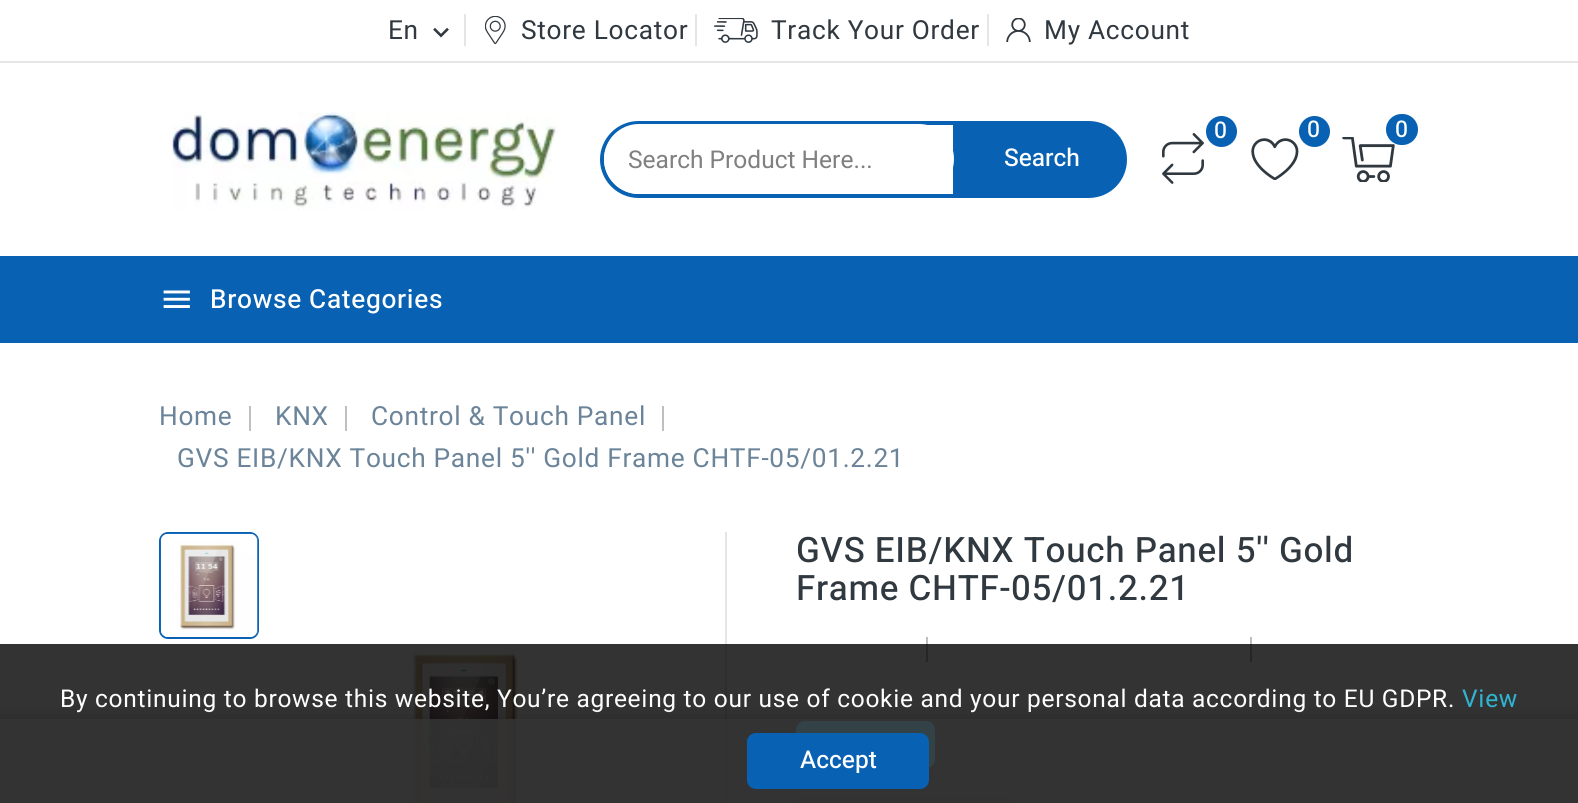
#include <cairo.h>
#include <math.h>
#include <stddef.h>


static void spaced_text(cairo_t *cr, double x, double y, const char *s, double letter, double word) {
    cairo_move_to(cr, x, y);
    while (*s) {
        char ch[5] = {0};
        int n = 0;
        do ch[n++] = *s++; while ((*s & 0xC0) == 0x80);
        cairo_show_text(cr, ch);
        cairo_rel_move_to(cr, letter + word * (*ch == ' '), 0);
    }
}

static void round_rect(cairo_t *cr, double x, double y, double w, double h, double r) {
    cairo_new_sub_path(cr);
    cairo_arc(cr, x + w - r, y + h - r, r, 0, M_PI / 2);
    cairo_arc(cr, x + r, y + h - r, r, M_PI / 2, M_PI);
    cairo_arc(cr, x + r, y + r, r, M_PI, 1.5 * M_PI);
    cairo_arc(cr, x + w - r, y + r, r, 1.5 * M_PI, 2 * M_PI);
    cairo_close_path(cr);
}

static void shadow(cairo_t *cr, double x, double y, double w, double h, double r, double blur, double alpha) {
    cairo_push_group_with_content(cr, CAIRO_CONTENT_ALPHA);
    cairo_set_operator(cr, CAIRO_OPERATOR_SOURCE);
    for (int i = 15; i >= -15 && fmin(w, h) + blur * i / 3 > 0; i -= 2) {
        double e = blur * i / 6;
        cairo_set_source_rgba(cr, 0, 0, 0, alpha * erfc((i - 1) / 8.5) / 2);
        round_rect(cr, x - e, y - e, w + 2 * e, h + 2 * e, fmax(0, fmin(r + e + blur * .6, fmin(w, h) / 2 + e)));
        cairo_fill(cr);
    }
    cairo_pattern_t *soft = cairo_pop_group(cr);
    cairo_mask(cr, soft);
    cairo_pattern_destroy(soft);
}

static void picture(cairo_t *cr, const char *path, double x, double y, double w, double h) {
    cairo_surface_t *image = cairo_image_surface_create_from_png(path);
    cairo_save(cr);
    cairo_set_source_surface(cr, image, x, y);
    cairo_rectangle(cr, x, y, w, h);
    cairo_fill(cr);
    cairo_restore(cr);
    cairo_surface_destroy(image);
}

int main(void) {
    cairo_surface_t *surface = cairo_image_surface_create(CAIRO_FORMAT_RGB24, 1578, 803);
    cairo_t *cr = cairo_create(surface);
    cairo_font_options_t *options = cairo_font_options_create();
    cairo_font_options_set_hint_metrics(options, CAIRO_HINT_METRICS_OFF);
    cairo_font_options_set_hint_style(options, CAIRO_HINT_STYLE_NONE);
    cairo_set_font_options(cr, options);
    cairo_set_miter_limit(cr, 4);
    cairo_set_source_rgb(cr, 1, 1, 1);
    cairo_paint(cr);
    cairo_set_source_rgb(cr, 0.898, 0.898, 0.898);
    cairo_rectangle(cr, 0, 61, 1578, 2);
    cairo_fill(cr);
    cairo_select_font_face(cr, "Heebo", CAIRO_FONT_SLANT_NORMAL, CAIRO_FONT_WEIGHT_NORMAL);
    cairo_set_font_size(cr, 26.25);
    cairo_set_source_rgb(cr, 0.188, 0.22, 0.251);
    spaced_text(cr, 388, 39, "En", 0.7, 0);
    picture(cr, "img1.png", 433, 27, 16, 11);
    cairo_set_source_rgb(cr, 0.898, 0.898, 0.898);
    cairo_rectangle(cr, 464, 14, 2, 32);
    cairo_fill(cr);
    picture(cr, "img2.png", 485, 16, 21, 29);
    cairo_set_source_rgb(cr, 0.188, 0.22, 0.251);
    spaced_text(cr, 521, 39, "Store Locator", 0.7, 0);
    cairo_set_source_rgb(cr, 0.898, 0.898, 0.898);
    cairo_rectangle(cr, 695, 14, 2, 32);
    cairo_fill(cr);
    picture(cr, "img3.png", 714, 18, 44, 25);
    cairo_set_source_rgb(cr, 0.188, 0.22, 0.251);
    spaced_text(cr, 771, 39, "Track Your Order", 0.7, 0);
    cairo_set_source_rgb(cr, 0.898, 0.898, 0.898);
    cairo_rectangle(cr, 987, 14, 2, 32);
    cairo_fill(cr);
    picture(cr, "img4.png", 1006, 18, 25, 24);
    cairo_set_source_rgb(cr, 0.188, 0.22, 0.251);
    spaced_text(cr, 1044, 39, "My Account", 0.7, 0);
    picture(cr, "img5.png", 171, 112, 388, 98);
    cairo_set_source_rgb(cr, 0.035, 0.38, 0.702);
    cairo_arc(cr, 1221.5, 131.5, 15.5, 0, 2 * M_PI);
    cairo_fill(cr);
    cairo_select_font_face(cr, "Heebo Medium", CAIRO_FONT_SLANT_NORMAL, CAIRO_FONT_WEIGHT_NORMAL);
    cairo_set_font_size(cr, 23);
    cairo_set_source_rgb(cr, 1, 1, 1);
    spaced_text(cr, 1214, 138, "0", 0.7, 0);
    picture(cr, "img6.png", 1162, 133, 42, 51);
    cairo_set_source_rgb(cr, 0.035, 0.38, 0.702);
    cairo_arc(cr, 1314.5, 131.5, 15.5, 0, 2 * M_PI);
    cairo_fill(cr);
    cairo_set_source_rgb(cr, 1, 1, 1);
    spaced_text(cr, 1307, 137, "0", 0.7, 0);
    picture(cr, "img7.png", 1251, 138, 48, 42);
    picture(cr, "img8.png", 1342, 137, 53, 45);
    cairo_set_source_rgb(cr, 0.035, 0.38, 0.702);
    round_rect(cr, 1386, 114, 32, 31, 15.5);
    cairo_fill(cr);
    cairo_set_source_rgb(cr, 1, 1, 1);
    spaced_text(cr, 1395, 137, "0", 0.7, 0);
    cairo_new_path(cr);
    cairo_move_to(cr, 638.5, 123);
    cairo_line_to(cr, 955, 123);
    cairo_line_to(cr, 955, 196);
    cairo_line_to(cr, 638.5, 196);
    cairo_curve_to(cr, 618.5, 196, 602, 179.5, 602, 159.5);
    cairo_curve_to(cr, 602, 139.5, 618.5, 123, 638.5, 123);
    cairo_close_path(cr);
    cairo_set_source_rgb(cr, 0.035, 0.38, 0.702);
    cairo_set_line_width(cr, 4);
    cairo_stroke(cr);
    cairo_set_source_rgb(cr, 1, 1, 1);
    round_rect(cr, 604, 124, 350, 70, 35);
    cairo_fill(cr);
    cairo_select_font_face(cr, "Heebo", CAIRO_FONT_SLANT_NORMAL, CAIRO_FONT_WEIGHT_NORMAL);
    cairo_set_font_size(cr, 24.5);
    cairo_set_source_rgb(cr, 0.502, 0.502, 0.502);
    cairo_move_to(cr, 628, 168);
    cairo_show_text(cr, "Search Product Here...");
    cairo_set_source_rgb(cr, 0.035, 0.38, 0.702);
    cairo_new_path(cr);
    cairo_move_to(cr, 957, 121);
    cairo_line_to(cr, 1088.5, 121);
    cairo_curve_to(cr, 1110, 121, 1127, 138, 1127, 159.5);
    cairo_curve_to(cr, 1127, 181, 1110, 198, 1088.5, 198);
    cairo_line_to(cr, 957, 198);
    cairo_close_path(cr);
    cairo_fill(cr);
    cairo_select_font_face(cr, "Heebo Medium", CAIRO_FONT_SLANT_NORMAL, CAIRO_FONT_WEIGHT_NORMAL);
    cairo_set_source_rgb(cr, 1, 1, 1);
    cairo_move_to(cr, 1004, 166);
    cairo_show_text(cr, "Search");
    cairo_set_source_rgb(cr, 0.035, 0.38, 0.702);
    cairo_rectangle(cr, 0, 256, 1578, 87);
    cairo_fill(cr);
    picture(cr, "img9.png", 163, 290, 27, 18);
    cairo_set_font_size(cr, 26.25);
    cairo_set_source_rgb(cr, 1, 1, 1);
    spaced_text(cr, 210, 308, "Browse Categories", 0.7, 0);
    cairo_select_font_face(cr, "Heebo", CAIRO_FONT_SLANT_NORMAL, CAIRO_FONT_WEIGHT_NORMAL);
    cairo_set_source_rgb(cr, 0.42, 0.518, 0.6);
    spaced_text(cr, 159, 425, "Home", 0.7, 0);
    cairo_set_source_rgb(cr, 0.749, 0.749, 0.749);
    cairo_rectangle(cr, 249, 406, 2, 25);
    cairo_fill(cr);
    cairo_set_source_rgb(cr, 0.42, 0.518, 0.6);
    spaced_text(cr, 275, 425, "KNX", 0.7, 0);
    cairo_set_source_rgb(cr, 0.749, 0.749, 0.749);
    cairo_rectangle(cr, 345, 406, 2, 25);
    cairo_fill(cr);
    cairo_set_source_rgb(cr, 0.42, 0.518, 0.6);
    spaced_text(cr, 371, 425, "Control & Touch Panel", 0.7, 0);
    cairo_set_source_rgb(cr, 0.749, 0.749, 0.749);
    cairo_rectangle(cr, 662, 406, 2, 25);
    cairo_fill(cr);
    cairo_set_source_rgb(cr, 0.42, 0.518, 0.6);
    spaced_text(cr, 177, 467, "GVS EIB/KNX Touch Panel 5'' Gold Frame CHTF-05/01.2.21", 0.7, 0);
    round_rect(cr, 160, 533, 98, 105, 8);
    cairo_set_source_rgb(cr, 0.035, 0.38, 0.702);
    cairo_set_line_width(cr, 2);
    cairo_stroke(cr);
    picture(cr, "img10.png", 160, 533, 98, 104);
    picture(cr, "img11.png", 413, 652, 105, 151);
    cairo_set_source_rgb(cr, 0.898, 0.898, 0.898);
    cairo_rectangle(cr, 725, 532, 2, 271);
    cairo_fill(cr);
    cairo_select_font_face(cr, "Heebo Medium", CAIRO_FONT_SLANT_NORMAL, CAIRO_FONT_WEIGHT_NORMAL);
    cairo_set_font_size(cr, 35);
    cairo_set_source_rgb(cr, 0.188, 0.22, 0.251);
    spaced_text(cr, 796, 562, "GVS EIB/KNX Touch Panel 5'' Gold", 0.7, 0);
    spaced_text(cr, 796, 600, "Frame CHTF-05/01.2.21", 0.7, 0);
    cairo_set_source_rgb(cr, 0.898, 0.898, 0.898);
    cairo_rectangle(cr, 796, 725, 623, 2);
    cairo_fill(cr);
    cairo_set_source_rgb(cr, 0.749, 0.749, 0.749);
    cairo_rectangle(cr, 926, 637, 2, 25);
    cairo_fill(cr);
    cairo_rectangle(cr, 1250, 637, 2, 25);
    cairo_fill(cr);
    cairo_set_source_rgb(cr, 1, 0.882, 0.796);
    round_rect(cr, 797, 797, 217, 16, 8);
    cairo_fill_preserve(cr);
    cairo_set_source_rgb(cr, 1, 0.792, 0.647);
    cairo_stroke(cr);
    cairo_set_source_rgba(cr, 0, 0, 0, 0.8);
    cairo_rectangle(cr, 0, 644, 1578, 159);
    cairo_fill(cr);
    cairo_select_font_face(cr, "Heebo", CAIRO_FONT_SLANT_NORMAL, CAIRO_FONT_WEIGHT_NORMAL);
    cairo_set_font_size(cr, 24.5);
    cairo_set_source_rgb(cr, 1, 1, 1);
    spaced_text(cr, 60, 707, "By continuing to browse this website, You’re agreeing to our use of cookie and your personal data according to EU GDPR.", 0.7, 0);
    cairo_set_source_rgb(cr, 0.184, 0.71, 0.824);
    spaced_text(cr, 1462, 707, "View", 0.7, 0);
    round_rect(cr, 796, 721, 139, 47, 9);
    cairo_fill(cr);
    cairo_save(cr);
    cairo_set_fill_rule(cr, CAIRO_FILL_RULE_EVEN_ODD);
    cairo_new_path(cr);
    cairo_move_to(cr, 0, 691);
    cairo_line_to(cr, 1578, 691);
    cairo_line_to(cr, 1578, 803);
    cairo_line_to(cr, 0, 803);
    cairo_close_path(cr);
    cairo_move_to(cr, 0, 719);
    cairo_line_to(cr, 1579, 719);
    cairo_line_to(cr, 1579, 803);
    cairo_line_to(cr, 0, 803);
    cairo_close_path(cr);
    cairo_clip(cr);
    cairo_set_source_rgb(cr, 0, 0, 0);
    shadow(cr, 0, 719, 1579, 84, 0, 9, 0.2);
    cairo_restore(cr);
    cairo_set_source_rgba(cr, 0.2, 0.2, 0.2, 0.88);
    cairo_rectangle(cr, 414, 719, 1005, 84);
    cairo_fill(cr);
    cairo_set_source_rgb(cr, 0.035, 0.38, 0.702);
    round_rect(cr, 747, 733, 182, 56, 9);
    cairo_fill(cr);
    cairo_select_font_face(cr, "Heebo Medium", CAIRO_FONT_SLANT_NORMAL, CAIRO_FONT_WEIGHT_NORMAL);
    cairo_set_source_rgb(cr, 1, 1, 1);
    cairo_move_to(cr, 800, 768);
    cairo_show_text(cr, "Accept");
    cairo_surface_write_to_png(surface, "page.png");
    cairo_font_options_destroy(options);
    cairo_destroy(cr);
    cairo_surface_destroy(surface);
    return 0;
}
